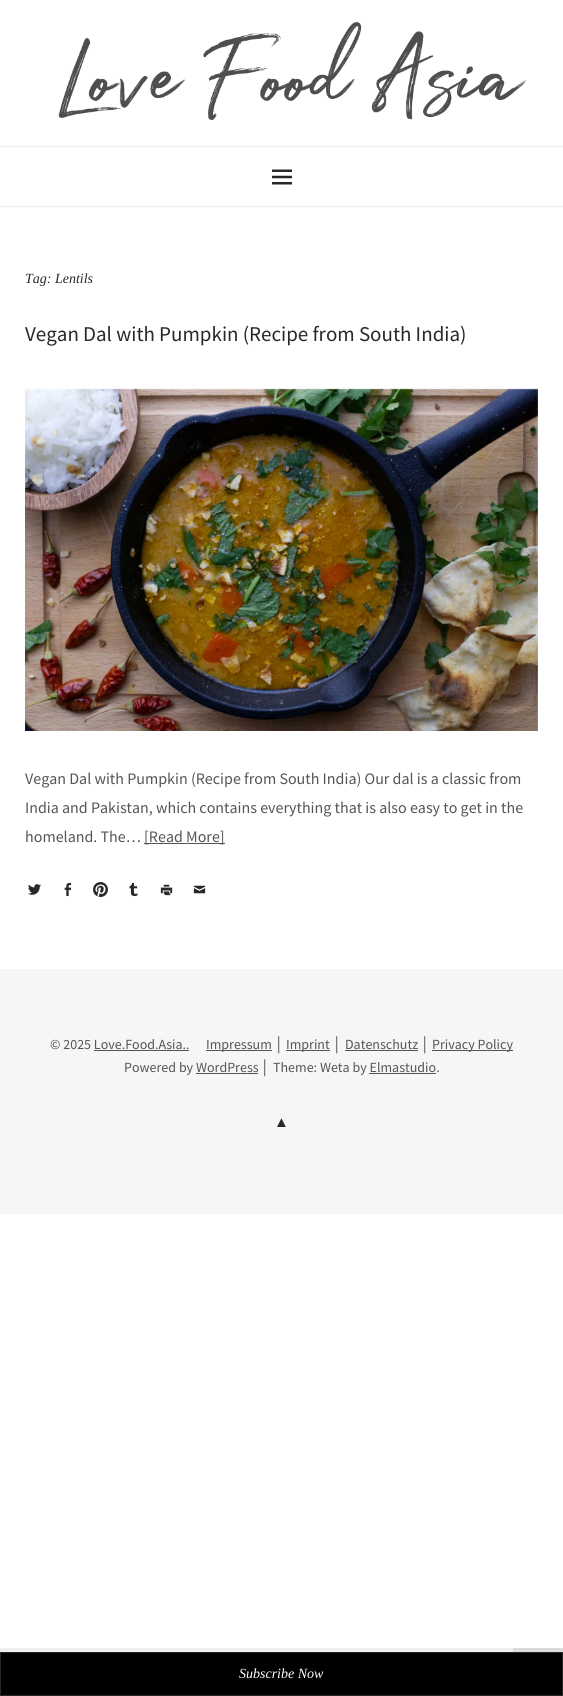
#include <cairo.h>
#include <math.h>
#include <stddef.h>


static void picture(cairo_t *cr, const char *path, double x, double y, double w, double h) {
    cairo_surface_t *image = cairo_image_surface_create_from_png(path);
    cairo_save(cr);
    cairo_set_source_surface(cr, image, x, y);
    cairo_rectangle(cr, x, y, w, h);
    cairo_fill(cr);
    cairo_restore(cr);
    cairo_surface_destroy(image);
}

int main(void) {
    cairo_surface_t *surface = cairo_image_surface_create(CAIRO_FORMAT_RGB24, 563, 1696);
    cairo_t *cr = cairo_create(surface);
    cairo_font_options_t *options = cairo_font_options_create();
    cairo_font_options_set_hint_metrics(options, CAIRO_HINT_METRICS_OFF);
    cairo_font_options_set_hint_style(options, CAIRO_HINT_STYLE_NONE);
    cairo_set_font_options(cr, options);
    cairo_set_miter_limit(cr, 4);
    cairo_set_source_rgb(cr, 1, 1, 1);
    cairo_paint(cr);
    cairo_set_source_rgb(cr, 0.929, 0.929, 0.933);
    cairo_rectangle(cr, 0, 146, 563, 1);
    cairo_fill(cr);
    picture(cr, "img1.png", 58, 22, 468, 98);
    cairo_rectangle(cr, 0, 206, 563, 1);
    cairo_fill(cr);
    picture(cr, "img2.png", 272, 169, 20, 16);
    cairo_select_font_face(cr, "Liberation Serif", CAIRO_FONT_SLANT_ITALIC, CAIRO_FONT_WEIGHT_NORMAL);
    cairo_set_font_size(cr, 14);
    cairo_set_source_rgb(cr, 0.157, 0.157, 0.157);
    cairo_move_to(cr, 25, 283);
    cairo_show_text(cr, "Tag: Lentils");
    cairo_select_font_face(cr, "Source Sans Pro", CAIRO_FONT_SLANT_NORMAL, CAIRO_FONT_WEIGHT_NORMAL);
    cairo_set_font_size(cr, 21);
    cairo_move_to(cr, 25, 341);
    cairo_show_text(cr, "Vegan Dal with Pumpkin (Recipe from South India)");
    picture(cr, "img3.png", 25, 388, 513, 343);
    cairo_set_font_size(cr, 16);
    cairo_set_source_rgb(cr, 0.333, 0.333, 0.333);
    cairo_move_to(cr, 25, 784);
    cairo_show_text(cr, "Vegan Dal with Pumpkin (Recipe from South India) Our dal is a classic from");
    cairo_move_to(cr, 25, 813);
    cairo_show_text(cr, "India and Pakistan, which contains everything that is also easy to get in the");
    cairo_move_to(cr, 25, 842);
    cairo_show_text(cr, "homeland. The…");
    cairo_rectangle(cr, 144, 843, 81, 1);
    cairo_fill(cr);
    cairo_move_to(cr, 144, 842);
    cairo_show_text(cr, "[Read More]");
    picture(cr, "img4.png", 28, 884, 13, 11);
    picture(cr, "img5.png", 64, 882, 8, 15);
    picture(cr, "img6.png", 93, 882, 15, 15);
    picture(cr, "img7.png", 129, 882, 9, 15);
    picture(cr, "img8.png", 160, 884, 13, 12);
    picture(cr, "img9.png", 193, 885, 13, 9);
    cairo_set_source_rgb(cr, 0.961, 0.961, 0.961);
    cairo_rectangle(cr, 0, 969, 563, 245);
    cairo_fill(cr);
    cairo_set_font_size(cr, 14);
    cairo_set_source_rgb(cr, 0.333, 0.333, 0.333);
    cairo_move_to(cr, 50, 1049);
    cairo_show_text(cr, "© 2025 Love.Food.Asia..");
    cairo_rectangle(cr, 94, 1050, 95, 1);
    cairo_fill(cr);
    cairo_rectangle(cr, 206, 1050, 66, 1);
    cairo_fill(cr);
    cairo_move_to(cr, 206, 1049);
    cairo_show_text(cr, "Impressum");
    cairo_select_font_face(cr, "Liberation Sans", CAIRO_FONT_SLANT_NORMAL, CAIRO_FONT_WEIGHT_NORMAL);
    cairo_move_to(cr, 275, 1049);
    cairo_show_text(cr, "│");
    cairo_rectangle(cr, 286, 1050, 44, 1);
    cairo_fill(cr);
    cairo_select_font_face(cr, "Source Sans Pro", CAIRO_FONT_SLANT_NORMAL, CAIRO_FONT_WEIGHT_NORMAL);
    cairo_move_to(cr, 286, 1049);
    cairo_show_text(cr, "Imprint");
    cairo_select_font_face(cr, "Liberation Sans", CAIRO_FONT_SLANT_NORMAL, CAIRO_FONT_WEIGHT_NORMAL);
    cairo_move_to(cr, 333, 1049);
    cairo_show_text(cr, "│");
    cairo_select_font_face(cr, "Source Sans Pro", CAIRO_FONT_SLANT_NORMAL, CAIRO_FONT_WEIGHT_NORMAL);
    cairo_move_to(cr, 345, 1049);
    cairo_show_text(cr, "Datenschutz");
    cairo_rectangle(cr, 345, 1050, 73, 1);
    cairo_fill(cr);
    cairo_select_font_face(cr, "Liberation Sans", CAIRO_FONT_SLANT_NORMAL, CAIRO_FONT_WEIGHT_NORMAL);
    cairo_move_to(cr, 421, 1049);
    cairo_show_text(cr, "│");
    cairo_rectangle(cr, 432, 1050, 81, 1);
    cairo_fill(cr);
    cairo_select_font_face(cr, "Source Sans Pro", CAIRO_FONT_SLANT_NORMAL, CAIRO_FONT_WEIGHT_NORMAL);
    cairo_move_to(cr, 432, 1049);
    cairo_show_text(cr, "Privacy Policy");
    cairo_move_to(cr, 124, 1072);
    cairo_show_text(cr, "Powered by WordPress");
    cairo_rectangle(cr, 196, 1073, 62, 1);
    cairo_fill(cr);
    cairo_select_font_face(cr, "Liberation Sans", CAIRO_FONT_SLANT_NORMAL, CAIRO_FONT_WEIGHT_NORMAL);
    cairo_move_to(cr, 261, 1072);
    cairo_show_text(cr, "│");
    cairo_select_font_face(cr, "Source Sans Pro", CAIRO_FONT_SLANT_NORMAL, CAIRO_FONT_WEIGHT_NORMAL);
    cairo_move_to(cr, 273, 1072);
    cairo_show_text(cr, "Theme: Weta by Elmastudio.");
    cairo_rectangle(cr, 369, 1073, 67, 1);
    cairo_fill(cr);
    cairo_select_font_face(cr, "Liberation Sans", CAIRO_FONT_SLANT_NORMAL, CAIRO_FONT_WEIGHT_NORMAL);
    cairo_set_font_size(cr, 15);
    cairo_set_source_rgb(cr, 0.157, 0.157, 0.157);
    cairo_move_to(cr, 274, 1127);
    cairo_show_text(cr, "▲");
    cairo_set_source_rgb(cr, 0, 0, 0);
    cairo_rectangle(cr, 0.5, 1652.5, 562, 43);
    cairo_fill_preserve(cr);
    cairo_set_source_rgb(cr, 0.157, 0.157, 0.157);
    cairo_set_line_width(cr, 1);
    cairo_stroke(cr);
    cairo_select_font_face(cr, "Liberation Serif", CAIRO_FONT_SLANT_ITALIC, CAIRO_FONT_WEIGHT_NORMAL);
    cairo_set_font_size(cr, 14);
    cairo_set_source_rgb(cr, 1, 1, 1);
    cairo_move_to(cr, 239, 1678);
    cairo_show_text(cr, "Subscribe Now");
    cairo_set_source_rgb(cr, 0.941, 0.941, 0.941);
    cairo_rectangle(cr, 0, 1648, 513, 4);
    cairo_fill(cr);
    cairo_set_source_rgb(cr, 0.855, 0.855, 0.855);
    cairo_rectangle(cr, 513, 1648, 50, 4);
    cairo_fill(cr);
    cairo_surface_write_to_png(surface, "page.png");
    cairo_font_options_destroy(options);
    cairo_destroy(cr);
    cairo_surface_destroy(surface);
    return 0;
}
